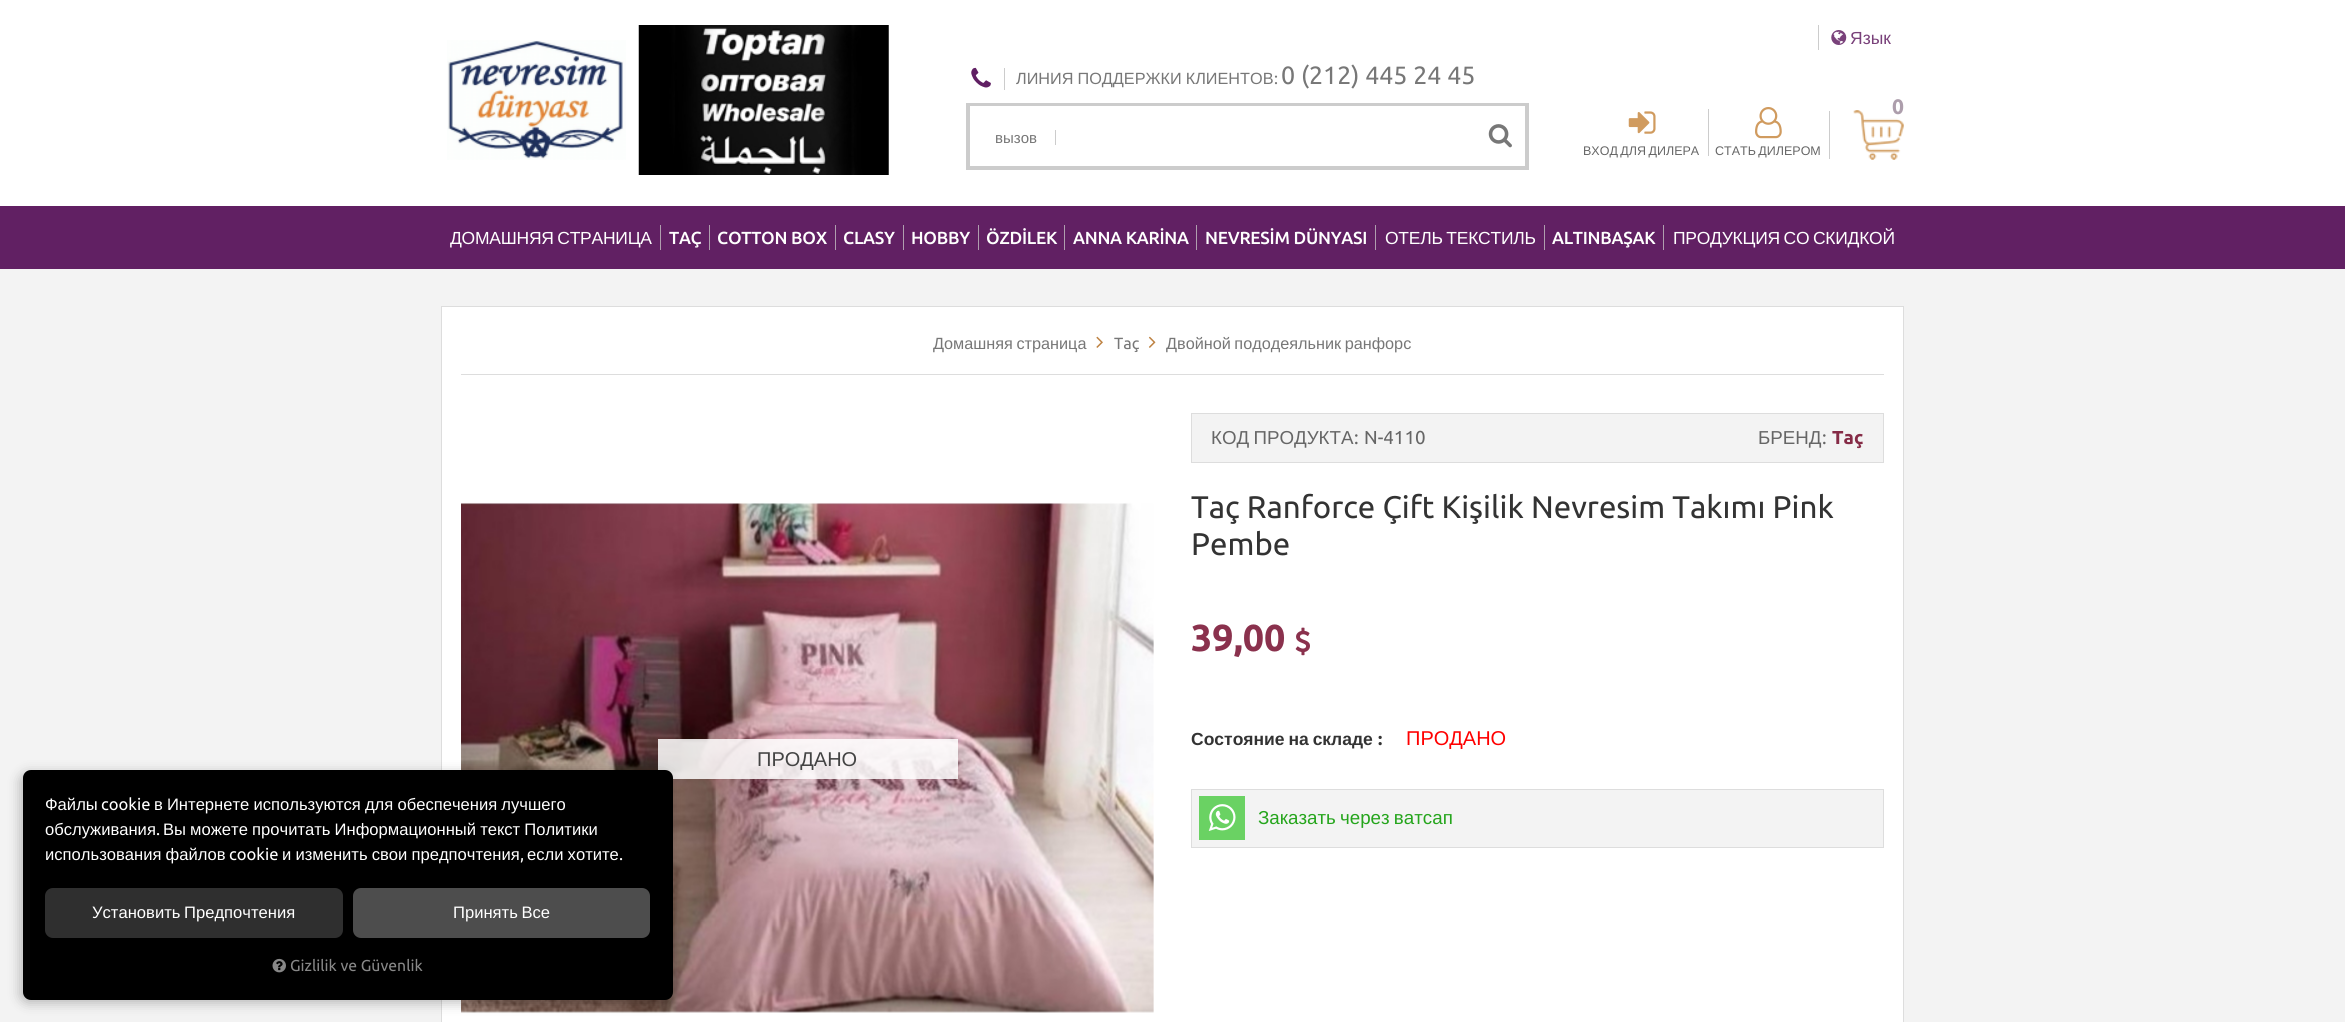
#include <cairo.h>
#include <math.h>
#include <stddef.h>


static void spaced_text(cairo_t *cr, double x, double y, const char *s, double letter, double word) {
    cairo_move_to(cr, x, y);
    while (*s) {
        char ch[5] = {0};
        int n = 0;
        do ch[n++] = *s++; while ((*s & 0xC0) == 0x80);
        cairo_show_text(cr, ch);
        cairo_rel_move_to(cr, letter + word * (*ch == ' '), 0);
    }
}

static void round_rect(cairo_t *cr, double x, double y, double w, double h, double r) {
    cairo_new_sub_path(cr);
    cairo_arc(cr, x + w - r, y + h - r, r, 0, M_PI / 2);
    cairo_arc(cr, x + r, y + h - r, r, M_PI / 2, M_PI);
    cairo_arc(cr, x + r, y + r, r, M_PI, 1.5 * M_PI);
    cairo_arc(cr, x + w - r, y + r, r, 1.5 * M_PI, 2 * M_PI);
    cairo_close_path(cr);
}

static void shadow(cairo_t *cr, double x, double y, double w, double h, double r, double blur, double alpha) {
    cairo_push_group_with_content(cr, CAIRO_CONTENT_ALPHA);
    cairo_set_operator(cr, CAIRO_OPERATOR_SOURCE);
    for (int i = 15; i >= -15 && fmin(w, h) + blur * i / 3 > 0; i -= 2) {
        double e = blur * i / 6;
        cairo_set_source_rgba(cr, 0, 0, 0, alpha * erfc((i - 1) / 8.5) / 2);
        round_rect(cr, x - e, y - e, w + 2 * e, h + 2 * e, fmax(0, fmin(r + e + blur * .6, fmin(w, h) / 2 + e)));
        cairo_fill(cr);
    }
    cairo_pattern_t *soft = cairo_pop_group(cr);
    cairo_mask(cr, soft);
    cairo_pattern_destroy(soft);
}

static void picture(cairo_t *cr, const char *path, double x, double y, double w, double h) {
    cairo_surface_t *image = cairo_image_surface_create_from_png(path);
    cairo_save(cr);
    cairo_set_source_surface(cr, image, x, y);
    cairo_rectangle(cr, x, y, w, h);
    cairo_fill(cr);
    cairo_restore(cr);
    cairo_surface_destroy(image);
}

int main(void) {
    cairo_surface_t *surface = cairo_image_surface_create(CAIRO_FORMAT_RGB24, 2345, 1022);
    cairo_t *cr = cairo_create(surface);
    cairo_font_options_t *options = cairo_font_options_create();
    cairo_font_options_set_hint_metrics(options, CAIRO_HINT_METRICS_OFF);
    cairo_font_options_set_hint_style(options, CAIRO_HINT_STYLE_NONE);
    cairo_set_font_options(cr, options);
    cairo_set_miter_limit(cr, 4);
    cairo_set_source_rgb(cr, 0.953, 0.953, 0.953);
    cairo_paint(cr);
    cairo_set_source_rgb(cr, 1, 1, 1);
    cairo_rectangle(cr, 0, 0, 2345, 206);
    cairo_fill(cr);
    cairo_set_source_rgb(cr, 0.8, 0.8, 0.8);
    cairo_rectangle(cr, 1818, 25, 1, 25);
    cairo_fill(cr);
    picture(cr, "img1.png", 1831, 30, 16, 15);
    cairo_select_font_face(cr, "Liberation Sans", CAIRO_FONT_SLANT_NORMAL, CAIRO_FONT_WEIGHT_NORMAL);
    cairo_set_font_size(cr, 17.5);
    cairo_set_source_rgb(cr, 0.475, 0.255, 0.478);
    cairo_move_to(cr, 1850, 44);
    cairo_show_text(cr, "Язык");
    picture(cr, "img2.png", 447, 40, 179, 120);
    picture(cr, "img3.png", 638, 25, 251, 150);
    cairo_set_source_rgb(cr, 0.8, 0.8, 0.8);
    cairo_rectangle(cr, 1004, 68, 1, 22);
    cairo_fill(cr);
    picture(cr, "img4.png", 971, 67, 20, 21);
    cairo_set_font_size(cr, 16.25);
    cairo_set_source_rgb(cr, 0.467, 0.467, 0.467);
    spaced_text(cr, 1016, 84, "ЛИНИЯ ПОДДЕРЖКИ КЛИЕНТОВ", 0, -0.5);
    cairo_select_font_face(cr, "Ubuntu", CAIRO_FONT_SLANT_NORMAL, CAIRO_FONT_WEIGHT_NORMAL);
    cairo_move_to(cr, 1274, 84);
    cairo_show_text(cr, ":");
    cairo_set_font_size(cr, 25);
    cairo_move_to(cr, 1281, 84);
    cairo_show_text(cr, "0 (212) 445 24 45");
    cairo_rectangle(cr, 968, 105, 559, 63);
    cairo_set_source_rgb(cr, 0.8, 0.8, 0.8);
    cairo_set_line_width(cr, 4);
    cairo_stroke(cr);
    cairo_set_source_rgb(cr, 1, 1, 1);
    cairo_rectangle(cr, 970, 106, 555, 1);
    cairo_fill(cr);
    cairo_set_source_rgb(cr, 0.8, 0.8, 0.8);
    cairo_rectangle(cr, 1055, 130, 1, 15);
    cairo_fill(cr);
    cairo_select_font_face(cr, "Liberation Sans", CAIRO_FONT_SLANT_NORMAL, CAIRO_FONT_WEIGHT_NORMAL);
    cairo_set_font_size(cr, 15);
    cairo_set_source_rgb(cr, 0.467, 0.467, 0.467);
    cairo_move_to(cr, 995, 143);
    cairo_show_text(cr, "вызов");
    picture(cr, "img5.png", 1488, 124, 24, 24);
    picture(cr, "img6.png", 1853, 110, 51, 50);
    cairo_select_font_face(cr, "Ubuntu", CAIRO_FONT_SLANT_NORMAL, CAIRO_FONT_WEIGHT_BOLD);
    cairo_set_font_size(cr, 21);
    cairo_set_source_rgb(cr, 0.678, 0.62, 0.675);
    cairo_move_to(cr, 1892, 114);
    cairo_show_text(cr, "0");
    cairo_set_source_rgb(cr, 0.8, 0.8, 0.8);
    cairo_rectangle(cr, 1829, 111, 1, 48);
    cairo_fill(cr);
    picture(cr, "img7.png", 1628, 111, 28, 23);
    cairo_select_font_face(cr, "Liberation Sans", CAIRO_FONT_SLANT_NORMAL, CAIRO_FONT_WEIGHT_NORMAL);
    cairo_set_font_size(cr, 12.5);
    cairo_set_source_rgb(cr, 0.4, 0.4, 0.4);
    spaced_text(cr, 1583, 155, "ВХОД ДЛЯ ДИЛЕРА", 0, -1);
    cairo_set_source_rgb(cr, 0.8, 0.8, 0.8);
    cairo_rectangle(cr, 1708, 109, 1, 47);
    cairo_fill(cr);
    picture(cr, "img8.png", 1755, 107, 27, 32);
    cairo_set_source_rgb(cr, 0.4, 0.4, 0.4);
    spaced_text(cr, 1715, 155, "СТАТЬ ДИЛЕРОМ", 0, -1);
    cairo_set_source_rgb(cr, 0.38, 0.125, 0.388);
    cairo_rectangle(cr, 0, 206, 2345, 63);
    cairo_fill(cr);
    cairo_set_font_size(cr, 17.5);
    cairo_set_source_rgb(cr, 1, 1, 1);
    spaced_text(cr, 450, 244, "ДОМАШНЯЯ СТРАНИЦА", -0.25, -1);
    cairo_set_source_rgb(cr, 0.686, 0.62, 0.682);
    cairo_rectangle(cr, 660, 225, 1, 25);
    cairo_fill(cr);
    cairo_select_font_face(cr, "Ubuntu Medium", CAIRO_FONT_SLANT_NORMAL, CAIRO_FONT_WEIGHT_NORMAL);
    cairo_set_source_rgb(cr, 1, 1, 1);
    spaced_text(cr, 669, 244, "TAÇ", -0.25, 0);
    cairo_set_source_rgb(cr, 0.686, 0.62, 0.682);
    cairo_rectangle(cr, 709, 225, 1, 25);
    cairo_fill(cr);
    cairo_set_source_rgb(cr, 1, 1, 1);
    spaced_text(cr, 717, 244, "COTTON BOX", -0.25, 0);
    cairo_set_source_rgb(cr, 0.686, 0.62, 0.682);
    cairo_rectangle(cr, 835, 225, 1, 25);
    cairo_fill(cr);
    cairo_set_source_rgb(cr, 1, 1, 1);
    spaced_text(cr, 843, 244, "CLASY", -0.25, 0);
    cairo_set_source_rgb(cr, 0.686, 0.62, 0.682);
    cairo_rectangle(cr, 903, 225, 1, 25);
    cairo_fill(cr);
    cairo_set_source_rgb(cr, 1, 1, 1);
    spaced_text(cr, 911, 244, "HOBBY", -0.25, 0);
    cairo_set_source_rgb(cr, 0.686, 0.62, 0.682);
    cairo_rectangle(cr, 978, 225, 1, 25);
    cairo_fill(cr);
    cairo_set_source_rgb(cr, 1, 1, 1);
    spaced_text(cr, 986, 244, "ÖZDİLEK", -0.25, 0);
    cairo_set_source_rgb(cr, 0.686, 0.62, 0.682);
    cairo_rectangle(cr, 1064, 225, 1, 25);
    cairo_fill(cr);
    cairo_set_source_rgb(cr, 1, 1, 1);
    spaced_text(cr, 1073, 244, "ANNA KARİNA", -0.25, 0);
    cairo_set_source_rgb(cr, 0.686, 0.62, 0.682);
    cairo_rectangle(cr, 1196, 225, 1, 25);
    cairo_fill(cr);
    cairo_set_source_rgb(cr, 1, 1, 1);
    spaced_text(cr, 1205, 244, "NEVRESİM DÜNYASI", -0.25, 0);
    cairo_set_source_rgb(cr, 0.686, 0.62, 0.682);
    cairo_rectangle(cr, 1375, 225, 1, 25);
    cairo_fill(cr);
    cairo_select_font_face(cr, "Liberation Sans", CAIRO_FONT_SLANT_NORMAL, CAIRO_FONT_WEIGHT_NORMAL);
    cairo_set_source_rgb(cr, 1, 1, 1);
    spaced_text(cr, 1385, 244, "ОТЕЛЬ ТЕКСТИЛЬ", -0.25, -1);
    cairo_set_source_rgb(cr, 0.686, 0.62, 0.682);
    cairo_rectangle(cr, 1544, 225, 1, 25);
    cairo_fill(cr);
    cairo_select_font_face(cr, "Ubuntu Medium", CAIRO_FONT_SLANT_NORMAL, CAIRO_FONT_WEIGHT_NORMAL);
    cairo_set_source_rgb(cr, 1, 1, 1);
    spaced_text(cr, 1552, 244, "ALTINBAŞAK", -0.25, 0);
    cairo_set_source_rgb(cr, 0.686, 0.62, 0.682);
    cairo_rectangle(cr, 1663, 225, 1, 25);
    cairo_fill(cr);
    cairo_select_font_face(cr, "Liberation Sans", CAIRO_FONT_SLANT_NORMAL, CAIRO_FONT_WEIGHT_NORMAL);
    cairo_set_source_rgb(cr, 1, 1, 1);
    spaced_text(cr, 1673, 244, "ПРОДУКЦИЯ СО СКИДКОЙ", -0.25, -1);
    cairo_rectangle(cr, 441.5, 306.5, 1462, 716);
    cairo_fill_preserve(cr);
    cairo_set_source_rgb(cr, 0.867, 0.867, 0.867);
    cairo_set_line_width(cr, 1);
    cairo_stroke(cr);
    cairo_rectangle(cr, 461, 374, 1423, 1);
    cairo_fill(cr);
    cairo_set_font_size(cr, 16.25);
    cairo_set_source_rgb(cr, 0.467, 0.467, 0.467);
    spaced_text(cr, 933, 349, "Домашняя страница", 0, -1);
    picture(cr, "img9.png", 1096, 336, 7, 12);
    cairo_select_font_face(cr, "Ubuntu", CAIRO_FONT_SLANT_NORMAL, CAIRO_FONT_WEIGHT_NORMAL);
    cairo_move_to(cr, 1114, 349);
    cairo_show_text(cr, "Taç");
    picture(cr, "img10.png", 1148, 336, 8, 12);
    cairo_select_font_face(cr, "Liberation Sans", CAIRO_FONT_SLANT_NORMAL, CAIRO_FONT_WEIGHT_NORMAL);
    spaced_text(cr, 1166, 349, "Двойной пододеяльник ранфорс", 0, -1);
    picture(cr, "img11.png", 461, 502, 693, 511);
    cairo_set_source_rgba(cr, 1, 1, 1, 0.85);
    cairo_rectangle(cr, 658, 739, 300, 40);
    cairo_fill(cr);
    cairo_set_font_size(cr, 20);
    cairo_set_source_rgb(cr, 0.267, 0.267, 0.267);
    cairo_move_to(cr, 757, 766);
    cairo_show_text(cr, "ПРОДАНО");
    cairo_set_source_rgb(cr, 0.953, 0.953, 0.953);
    cairo_rectangle(cr, 1191.5, 413.5, 692, 49);
    cairo_fill_preserve(cr);
    cairo_set_source_rgb(cr, 0.867, 0.867, 0.867);
    cairo_stroke(cr);
    cairo_set_font_size(cr, 18.75);
    cairo_set_source_rgb(cr, 0.4, 0.4, 0.4);
    spaced_text(cr, 1211, 444, "КОД ПРОДУКТА", 0, -1);
    cairo_select_font_face(cr, "Ubuntu", CAIRO_FONT_SLANT_NORMAL, CAIRO_FONT_WEIGHT_NORMAL);
    cairo_move_to(cr, 1354, 444);
    cairo_show_text(cr, ":");
    cairo_move_to(cr, 1364, 444);
    cairo_show_text(cr, "N-4110");
    cairo_select_font_face(cr, "Liberation Sans", CAIRO_FONT_SLANT_NORMAL, CAIRO_FONT_WEIGHT_NORMAL);
    cairo_move_to(cr, 1758, 444);
    cairo_show_text(cr, "БРЕНД");
    cairo_select_font_face(cr, "Ubuntu", CAIRO_FONT_SLANT_NORMAL, CAIRO_FONT_WEIGHT_NORMAL);
    cairo_move_to(cr, 1822, 444);
    cairo_show_text(cr, ":");
    cairo_select_font_face(cr, "Ubuntu", CAIRO_FONT_SLANT_NORMAL, CAIRO_FONT_WEIGHT_BOLD);
    cairo_set_source_rgb(cr, 0.522, 0.169, 0.275);
    cairo_move_to(cr, 1832, 444);
    cairo_show_text(cr, "Taç");
    cairo_select_font_face(cr, "Ubuntu", CAIRO_FONT_SLANT_NORMAL, CAIRO_FONT_WEIGHT_NORMAL);
    cairo_set_font_size(cr, 31.25);
    cairo_set_source_rgb(cr, 0.2, 0.2, 0.2);
    cairo_move_to(cr, 1191, 518);
    cairo_show_text(cr, "Taç Ranforce Çift Kişilik Nevresim Takımı Pink");
    cairo_move_to(cr, 1191, 555);
    cairo_show_text(cr, "Pembe");
    cairo_select_font_face(cr, "Ubuntu", CAIRO_FONT_SLANT_NORMAL, CAIRO_FONT_WEIGHT_BOLD);
    cairo_set_font_size(cr, 37.5);
    cairo_set_source_rgb(cr, 0.541, 0.192, 0.302);
    cairo_move_to(cr, 1191, 651);
    cairo_show_text(cr, "39,00");
    picture(cr, "img12.png", 1295, 627, 15, 29);
    cairo_select_font_face(cr, "Liberation Sans", CAIRO_FONT_SLANT_NORMAL, CAIRO_FONT_WEIGHT_BOLD);
    cairo_set_font_size(cr, 17.5);
    cairo_set_source_rgb(cr, 0.2, 0.2, 0.2);
    spaced_text(cr, 1191, 745, "Состояние на складе", 0, -1);
    cairo_select_font_face(cr, "Ubuntu", CAIRO_FONT_SLANT_NORMAL, CAIRO_FONT_WEIGHT_BOLD);
    cairo_move_to(cr, 1378, 745);
    cairo_show_text(cr, ":");
    cairo_select_font_face(cr, "Liberation Sans", CAIRO_FONT_SLANT_NORMAL, CAIRO_FONT_WEIGHT_NORMAL);
    cairo_set_font_size(cr, 20);
    cairo_set_source_rgb(cr, 1, 0, 0);
    cairo_move_to(cr, 1406, 745);
    cairo_show_text(cr, "ПРОДАНО");
    cairo_set_source_rgb(cr, 0.953, 0.953, 0.953);
    cairo_rectangle(cr, 1191.5, 789.5, 692, 58);
    cairo_fill_preserve(cr);
    cairo_set_source_rgb(cr, 0.867, 0.867, 0.867);
    cairo_stroke(cr);
    cairo_set_source_rgb(cr, 0.416, 0.824, 0.388);
    cairo_rectangle(cr, 1199, 796, 46, 44);
    cairo_fill(cr);
    picture(cr, "img13.png", 1208, 804, 28, 27);
    cairo_set_font_size(cr, 18.75);
    cairo_set_source_rgb(cr, 0.145, 0.647, 0.11);
    spaced_text(cr, 1258, 824, "Заказать через ватсап", 0, -1);
    cairo_set_source_rgb(cr, 0, 0, 0);
    shadow(cr, 20, 773, 650, 230, 8, 6, 0.25);
    cairo_set_source_rgb(cr, 0, 0, 0);
    round_rect(cr, 23, 770, 650, 230, 8);
    cairo_fill(cr);
    cairo_set_font_size(cr, 16.6);
    cairo_set_source_rgb(cr, 1, 1, 1);
    cairo_move_to(cr, 45, 810);
    cairo_show_text(cr, "Файлы");
    cairo_select_font_face(cr, "Ubuntu", CAIRO_FONT_SLANT_NORMAL, CAIRO_FONT_WEIGHT_NORMAL);
    cairo_move_to(cr, 101, 810);
    cairo_show_text(cr, "cookie");
    cairo_select_font_face(cr, "Liberation Sans", CAIRO_FONT_SLANT_NORMAL, CAIRO_FONT_WEIGHT_NORMAL);
    spaced_text(cr, 154, 810, "в Интернете используются для обеспечения лучшего", 0, -0.5);
    cairo_move_to(cr, 45, 835);
    cairo_show_text(cr, "обслуживания");
    cairo_select_font_face(cr, "Ubuntu", CAIRO_FONT_SLANT_NORMAL, CAIRO_FONT_WEIGHT_NORMAL);
    cairo_move_to(cr, 156, 835);
    cairo_show_text(cr, ".");
    cairo_select_font_face(cr, "Liberation Sans", CAIRO_FONT_SLANT_NORMAL, CAIRO_FONT_WEIGHT_NORMAL);
    spaced_text(cr, 163, 835, "Вы можете прочитать Информационный текст Политики", 0, -0.5);
    spaced_text(cr, 45, 860, "использования файлов", 0, -0.5);
    cairo_select_font_face(cr, "Ubuntu", CAIRO_FONT_SLANT_NORMAL, CAIRO_FONT_WEIGHT_NORMAL);
    cairo_move_to(cr, 229, 860);
    cairo_show_text(cr, "cookie");
    cairo_select_font_face(cr, "Liberation Sans", CAIRO_FONT_SLANT_NORMAL, CAIRO_FONT_WEIGHT_NORMAL);
    spaced_text(cr, 282, 860, "и изменить свои предпочтения", 0, -0.5);
    cairo_select_font_face(cr, "Ubuntu", CAIRO_FONT_SLANT_NORMAL, CAIRO_FONT_WEIGHT_NORMAL);
    cairo_move_to(cr, 520, 860);
    cairo_show_text(cr, ",");
    cairo_select_font_face(cr, "Liberation Sans", CAIRO_FONT_SLANT_NORMAL, CAIRO_FONT_WEIGHT_NORMAL);
    spaced_text(cr, 527, 860, "если хотите", 0, -0.5);
    cairo_select_font_face(cr, "Ubuntu", CAIRO_FONT_SLANT_NORMAL, CAIRO_FONT_WEIGHT_NORMAL);
    cairo_move_to(cr, 619, 860);
    cairo_show_text(cr, ".");
    cairo_set_source_rgb(cr, 0.184, 0.184, 0.184);
    round_rect(cr, 45, 888, 298, 50, 8);
    cairo_fill(cr);
    cairo_select_font_face(cr, "Liberation Sans", CAIRO_FONT_SLANT_NORMAL, CAIRO_FONT_WEIGHT_NORMAL);
    cairo_set_source_rgb(cr, 1, 1, 1);
    spaced_text(cr, 92, 918, "Установить Предпочтения", 0, -1);
    cairo_set_source_rgb(cr, 0.302, 0.302, 0.302);
    round_rect(cr, 353, 888, 297, 50, 8);
    cairo_fill(cr);
    cairo_set_source_rgb(cr, 1, 1, 1);
    spaced_text(cr, 453, 918, "Принять Все", 0, -1);
    picture(cr, "img14.png", 272, 958, 14, 15);
    cairo_select_font_face(cr, "Ubuntu", CAIRO_FONT_SLANT_NORMAL, CAIRO_FONT_WEIGHT_NORMAL);
    cairo_set_font_size(cr, 15.75);
    cairo_set_source_rgb(cr, 0.533, 0.533, 0.533);
    cairo_move_to(cr, 290, 971);
    cairo_show_text(cr, "Gizlilik ve Güvenlik");
    cairo_surface_write_to_png(surface, "page.png");
    cairo_font_options_destroy(options);
    cairo_destroy(cr);
    cairo_surface_destroy(surface);
    return 0;
}
